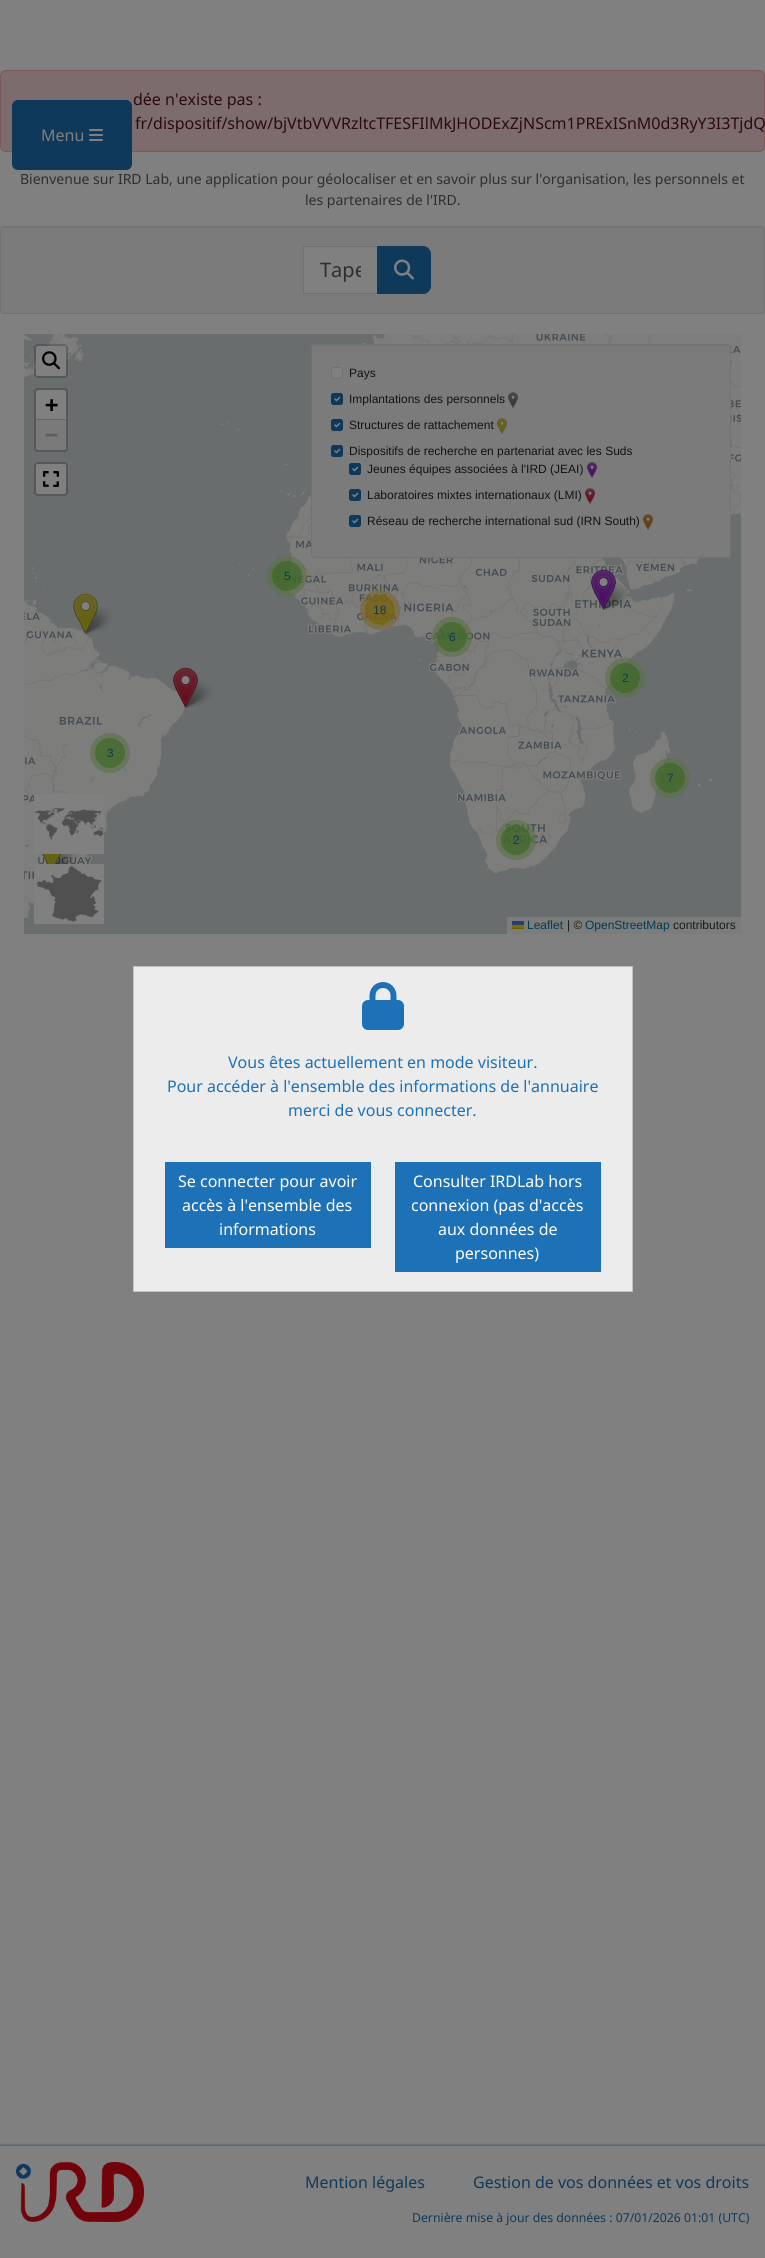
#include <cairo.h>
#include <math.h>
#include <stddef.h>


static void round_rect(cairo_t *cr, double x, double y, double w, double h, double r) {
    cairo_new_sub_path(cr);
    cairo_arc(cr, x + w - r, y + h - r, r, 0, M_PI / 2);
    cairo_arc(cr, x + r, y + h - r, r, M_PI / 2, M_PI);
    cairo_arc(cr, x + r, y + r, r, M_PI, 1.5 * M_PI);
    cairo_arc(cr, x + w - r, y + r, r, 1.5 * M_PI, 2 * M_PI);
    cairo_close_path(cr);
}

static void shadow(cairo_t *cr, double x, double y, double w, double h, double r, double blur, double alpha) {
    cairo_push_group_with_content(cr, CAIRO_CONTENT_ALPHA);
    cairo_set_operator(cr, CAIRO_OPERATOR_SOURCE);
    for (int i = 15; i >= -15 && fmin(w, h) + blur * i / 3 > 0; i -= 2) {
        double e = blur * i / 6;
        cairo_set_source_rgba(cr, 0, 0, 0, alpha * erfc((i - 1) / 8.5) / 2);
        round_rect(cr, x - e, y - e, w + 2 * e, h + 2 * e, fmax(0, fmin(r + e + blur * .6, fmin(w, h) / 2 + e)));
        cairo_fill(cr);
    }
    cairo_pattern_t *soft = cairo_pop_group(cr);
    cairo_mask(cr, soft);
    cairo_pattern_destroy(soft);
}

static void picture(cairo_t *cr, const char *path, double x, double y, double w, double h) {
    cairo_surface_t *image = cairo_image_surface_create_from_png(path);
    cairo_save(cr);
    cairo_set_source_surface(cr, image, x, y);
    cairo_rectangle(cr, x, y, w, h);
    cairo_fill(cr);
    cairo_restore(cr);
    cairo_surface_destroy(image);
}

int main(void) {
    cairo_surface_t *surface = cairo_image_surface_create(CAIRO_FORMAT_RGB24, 765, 2258);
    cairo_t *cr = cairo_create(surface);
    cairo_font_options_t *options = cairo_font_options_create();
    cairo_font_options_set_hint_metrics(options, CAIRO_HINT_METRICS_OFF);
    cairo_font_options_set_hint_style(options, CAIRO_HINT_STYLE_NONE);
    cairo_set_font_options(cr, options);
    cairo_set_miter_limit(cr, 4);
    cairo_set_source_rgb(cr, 0.502, 0.502, 0.502);
    cairo_paint(cr);
    cairo_set_source_rgb(cr, 0.486, 0.424, 0.427);
    round_rect(cr, 0.5, 70.5, 764, 81, 5.5);
    cairo_fill_preserve(cr);
    cairo_set_source_rgb(cr, 0.475, 0.341, 0.357);
    cairo_set_line_width(cr, 1);
    cairo_stroke(cr);
    cairo_select_font_face(cr, "Noto Sans", CAIRO_FONT_SLANT_NORMAL, CAIRO_FONT_WEIGHT_NORMAL);
    cairo_set_font_size(cr, 16);
    cairo_set_source_rgb(cr, 0.173, 0.043, 0.055);
    cairo_move_to(cr, 133, 105);
    cairo_show_text(cr, "dée n'existe pas :");
    cairo_move_to(cr, 135, 129);
    cairo_show_text(cr, "fr/dispositif/show/bjVtbVVVRzltcTFESFIlMkJHODExZjNScm1PRExISnM0d3RyY3I3TjdQ");
    cairo_set_font_size(cr, 14);
    cairo_set_source_rgb(cr, 0.176, 0.18, 0.188);
    cairo_move_to(cr, 20, 184);
    cairo_show_text(cr, "Bienvenue sur IRD Lab, une application pour géolocaliser et en savoir plus sur l'organisation, les personnels et");
    cairo_move_to(cr, 305, 205);
    cairo_show_text(cr, "les partenaires de l'IRD.");
    cairo_set_source_rgb(cr, 0.482, 0.482, 0.482);
    round_rect(cr, 0, 226, 765, 88, 4);
    cairo_fill(cr);
    cairo_set_source_rgb(cr, 0.459, 0.459, 0.459);
    cairo_new_path(cr);
    cairo_move_to(cr, 4, 228);
    cairo_line_to(cr, 761, 228);
    cairo_curve_to(cr, 763, 228, 764, 229, 764, 231);
    cairo_curve_to(cr, 764, 229, 763, 227, 761, 227);
    cairo_line_to(cr, 4, 227);
    cairo_curve_to(cr, 2, 227, 1, 229, 1, 231);
    cairo_curve_to(cr, 1, 229, 2, 228, 4, 228);
    cairo_close_path(cr);
    cairo_fill(cr);
    round_rect(cr, 0.5, 226.5, 764, 87, 3.5);
    cairo_set_source_rgb(cr, 0.447, 0.447, 0.447);
    cairo_stroke(cr);
    cairo_set_source_rgb(cr, 0.502, 0.502, 0.502);
    cairo_rectangle(cr, 303.5, 246.5, 74, 47);
    cairo_fill_preserve(cr);
    cairo_set_source_rgb(cr, 0.435, 0.443, 0.451);
    cairo_stroke(cr);
    cairo_save(cr);
    cairo_rectangle(cr, 320, 256, 41, 27);
    cairo_clip(cr);
    cairo_set_font_size(cr, 20);
    cairo_set_source_rgb(cr, 0.176, 0.18, 0.188);
    cairo_move_to(cr, 320, 277);
    cairo_show_text(cr, "Tape");
    cairo_restore(cr);
    cairo_set_source_rgb(cr, 0.059, 0.224, 0.357);
    cairo_new_path(cr);
    cairo_move_to(cr, 377.5, 246.5);
    cairo_line_to(cr, 423, 246.5);
    cairo_curve_to(cr, 427, 246.5, 430.5, 250, 430.5, 254);
    cairo_line_to(cr, 430.5, 286);
    cairo_curve_to(cr, 430.5, 290, 427, 293.5, 423, 293.5);
    cairo_line_to(cr, 377.5, 293.5);
    cairo_close_path(cr);
    cairo_fill_preserve(cr);
    cairo_stroke(cr);
    picture(cr, "img1.png", 394, 259, 20, 21);
    picture(cr, "img11.png", 24, 334, 103, 72);
    round_rect(cr, 35, 345, 32, 32, 3);
    cairo_set_source_rgba(cr, 0, 0, 0, 0.2);
    cairo_set_line_width(cr, 2);
    cairo_stroke(cr);
    cairo_set_source_rgb(cr, 0.502, 0.502, 0.502);
    round_rect(cr, 36, 346, 30, 30, 2);
    cairo_fill(cr);
    picture(cr, "img2.png", 42, 351, 18, 19);
    picture(cr, "img15.png", 24, 406, 103, 256);
    round_rect(cr, 35, 389, 32, 62, 3);
    cairo_set_source_rgb(cr, 0.333, 0.341, 0.345);
    cairo_stroke(cr);
    cairo_set_source_rgb(cr, 0.502, 0.502, 0.502);
    cairo_new_path(cr);
    cairo_move_to(cr, 38, 390);
    cairo_line_to(cr, 64, 390);
    cairo_curve_to(cr, 65, 390, 66, 391, 66, 392);
    cairo_line_to(cr, 66, 420);
    cairo_line_to(cr, 36, 420);
    cairo_line_to(cr, 36, 392);
    cairo_curve_to(cr, 36, 391, 37, 390, 38, 390);
    cairo_close_path(cr);
    cairo_fill(cr);
    cairo_set_source_rgb(cr, 0.4, 0.4, 0.4);
    cairo_rectangle(cr, 36, 419, 30, 1);
    cairo_fill(cr);
    cairo_select_font_face(cr, "DejaVu Sans Mono", CAIRO_FONT_SLANT_NORMAL, CAIRO_FONT_WEIGHT_BOLD);
    cairo_set_font_size(cr, 22);
    cairo_set_source_rgb(cr, 0, 0, 0);
    cairo_move_to(cr, 45, 412);
    cairo_show_text(cr, "+");
    cairo_set_source_rgb(cr, 0.478, 0.478, 0.478);
    cairo_new_path(cr);
    cairo_move_to(cr, 36, 420);
    cairo_line_to(cr, 66, 420);
    cairo_line_to(cr, 66, 448);
    cairo_curve_to(cr, 66, 449, 65, 450, 64, 450);
    cairo_line_to(cr, 38, 450);
    cairo_curve_to(cr, 37, 450, 36, 449, 36, 448);
    cairo_close_path(cr);
    cairo_fill(cr);
    cairo_set_source_rgb(cr, 0.369, 0.369, 0.369);
    cairo_move_to(cr, 45, 442);
    cairo_show_text(cr, "−");
    round_rect(cr, 35, 463, 32, 32, 3);
    cairo_set_source_rgb(cr, 0.333, 0.341, 0.345);
    cairo_stroke(cr);
    cairo_set_source_rgb(cr, 0.502, 0.502, 0.502);
    round_rect(cr, 36, 464, 30, 30, 2);
    cairo_fill(cr);
    picture(cr, "img3.png", 43, 471, 16, 16);
    picture(cr, "img12.png", 127, 334, 256, 72);
    picture(cr, "img14.png", 639, 334, 102, 72);
    picture(cr, "img16.png", 127, 406, 256, 256);
    picture(cr, "img18.png", 639, 406, 102, 256);
    cairo_set_source_rgb(cr, 0.482, 0.482, 0.482);
    round_rect(cr, 311, 344, 420, 214, 4);
    cairo_fill(cr);
    cairo_set_source_rgb(cr, 0.459, 0.459, 0.459);
    cairo_new_path(cr);
    cairo_move_to(cr, 315, 346);
    cairo_line_to(cr, 727, 346);
    cairo_curve_to(cr, 729, 346, 730, 347, 730, 349);
    cairo_curve_to(cr, 730, 347, 729, 345, 727, 345);
    cairo_line_to(cr, 315, 345);
    cairo_curve_to(cr, 313, 345, 312, 347, 312, 349);
    cairo_curve_to(cr, 312, 347, 313, 346, 315, 346);
    cairo_close_path(cr);
    cairo_fill(cr);
    round_rect(cr, 311.5, 344.5, 419, 213, 3.5);
    cairo_set_source_rgb(cr, 0.447, 0.447, 0.447);
    cairo_set_line_width(cr, 1);
    cairo_stroke(cr);
    cairo_set_source_rgb(cr, 0.502, 0.502, 0.502);
    round_rect(cr, 331.5, 367.5, 11, 11, 2.5);
    cairo_fill_preserve(cr);
    cairo_set_source_rgb(cr, 0.435, 0.443, 0.451);
    cairo_stroke(cr);
    cairo_select_font_face(cr, "Liberation Sans", CAIRO_FONT_SLANT_NORMAL, CAIRO_FONT_WEIGHT_NORMAL);
    cairo_set_font_size(cr, 12);
    cairo_set_source_rgb(cr, 0.067, 0.075, 0.082);
    cairo_move_to(cr, 349, 377);
    cairo_show_text(cr, "Pays");
    cairo_set_source_rgb(cr, 0.059, 0.224, 0.357);
    round_rect(cr, 331, 393, 12, 12, 3);
    cairo_fill(cr);
    cairo_new_path(cr);
    cairo_move_to(cr, 335, 399);
    cairo_line_to(cr, 336.5, 400.5);
    cairo_line_to(cr, 339.5, 397.5);
    cairo_set_source_rgb(cr, 0.502, 0.502, 0.502);
    cairo_set_line_width(cr, 1.5);
    cairo_set_line_cap(cr, CAIRO_LINE_CAP_ROUND);
    cairo_set_line_join(cr, CAIRO_LINE_JOIN_ROUND);
    cairo_stroke(cr);
    round_rect(cr, 331.5, 393.5, 11, 11, 2.5);
    cairo_set_source_rgb(cr, 0.059, 0.224, 0.357);
    cairo_set_line_width(cr, 1);
    cairo_set_line_cap(cr, CAIRO_LINE_CAP_BUTT);
    cairo_set_line_join(cr, CAIRO_LINE_JOIN_MITER);
    cairo_stroke(cr);
    cairo_set_source_rgb(cr, 0.067, 0.075, 0.082);
    cairo_move_to(cr, 349, 403);
    cairo_show_text(cr, "Implantations des personnels");
    picture(cr, "img4.png", 508, 392, 10, 16);
    cairo_set_source_rgb(cr, 0.059, 0.224, 0.357);
    round_rect(cr, 331, 419, 12, 12, 3);
    cairo_fill(cr);
    cairo_new_path(cr);
    cairo_move_to(cr, 335, 425);
    cairo_line_to(cr, 336.5, 426.5);
    cairo_line_to(cr, 339.5, 423.5);
    cairo_set_source_rgb(cr, 0.502, 0.502, 0.502);
    cairo_set_line_width(cr, 1.5);
    cairo_set_line_cap(cr, CAIRO_LINE_CAP_ROUND);
    cairo_set_line_join(cr, CAIRO_LINE_JOIN_ROUND);
    cairo_stroke(cr);
    round_rect(cr, 331.5, 419.5, 11, 11, 2.5);
    cairo_set_source_rgb(cr, 0.059, 0.224, 0.357);
    cairo_set_line_width(cr, 1);
    cairo_set_line_cap(cr, CAIRO_LINE_CAP_BUTT);
    cairo_set_line_join(cr, CAIRO_LINE_JOIN_MITER);
    cairo_stroke(cr);
    cairo_set_source_rgb(cr, 0.067, 0.075, 0.082);
    cairo_move_to(cr, 349, 429);
    cairo_show_text(cr, "Structures de rattachement");
    picture(cr, "img5.png", 497, 418, 10, 16);
    cairo_set_source_rgb(cr, 0.059, 0.224, 0.357);
    round_rect(cr, 331, 445, 12, 12, 3);
    cairo_fill(cr);
    cairo_new_path(cr);
    cairo_move_to(cr, 335, 451);
    cairo_line_to(cr, 336.5, 452.5);
    cairo_line_to(cr, 339.5, 449.5);
    cairo_set_source_rgb(cr, 0.502, 0.502, 0.502);
    cairo_set_line_width(cr, 1.5);
    cairo_set_line_cap(cr, CAIRO_LINE_CAP_ROUND);
    cairo_set_line_join(cr, CAIRO_LINE_JOIN_ROUND);
    cairo_stroke(cr);
    round_rect(cr, 331.5, 445.5, 11, 11, 2.5);
    cairo_set_source_rgb(cr, 0.059, 0.224, 0.357);
    cairo_set_line_width(cr, 1);
    cairo_set_line_cap(cr, CAIRO_LINE_CAP_BUTT);
    cairo_set_line_join(cr, CAIRO_LINE_JOIN_MITER);
    cairo_stroke(cr);
    cairo_set_source_rgb(cr, 0.067, 0.075, 0.082);
    cairo_move_to(cr, 349, 455);
    cairo_show_text(cr, "Dispositifs de recherche en partenariat avec les Suds");
    cairo_set_source_rgb(cr, 0.059, 0.224, 0.357);
    round_rect(cr, 349, 463, 12, 12, 3);
    cairo_fill(cr);
    cairo_new_path(cr);
    cairo_move_to(cr, 353, 469);
    cairo_line_to(cr, 354.5, 470.5);
    cairo_line_to(cr, 357.5, 467.5);
    cairo_set_source_rgb(cr, 0.502, 0.502, 0.502);
    cairo_set_line_width(cr, 1.5);
    cairo_set_line_cap(cr, CAIRO_LINE_CAP_ROUND);
    cairo_set_line_join(cr, CAIRO_LINE_JOIN_ROUND);
    cairo_stroke(cr);
    round_rect(cr, 349.5, 463.5, 11, 11, 2.5);
    cairo_set_source_rgb(cr, 0.059, 0.224, 0.357);
    cairo_set_line_width(cr, 1);
    cairo_set_line_cap(cr, CAIRO_LINE_CAP_BUTT);
    cairo_set_line_join(cr, CAIRO_LINE_JOIN_MITER);
    cairo_stroke(cr);
    cairo_set_source_rgb(cr, 0.067, 0.075, 0.082);
    cairo_move_to(cr, 367, 473);
    cairo_show_text(cr, "Jeunes équipes associées à l'IRD (JEAI)");
    picture(cr, "img6.png", 587, 462, 10, 16);
    cairo_set_source_rgb(cr, 0.059, 0.224, 0.357);
    round_rect(cr, 349, 489, 12, 12, 3);
    cairo_fill(cr);
    cairo_new_path(cr);
    cairo_move_to(cr, 353, 495);
    cairo_line_to(cr, 354.5, 496.5);
    cairo_line_to(cr, 357.5, 493.5);
    cairo_set_source_rgb(cr, 0.502, 0.502, 0.502);
    cairo_set_line_width(cr, 1.5);
    cairo_set_line_cap(cr, CAIRO_LINE_CAP_ROUND);
    cairo_set_line_join(cr, CAIRO_LINE_JOIN_ROUND);
    cairo_stroke(cr);
    round_rect(cr, 349.5, 489.5, 11, 11, 2.5);
    cairo_set_source_rgb(cr, 0.059, 0.224, 0.357);
    cairo_set_line_width(cr, 1);
    cairo_set_line_cap(cr, CAIRO_LINE_CAP_BUTT);
    cairo_set_line_join(cr, CAIRO_LINE_JOIN_MITER);
    cairo_stroke(cr);
    cairo_set_source_rgb(cr, 0.067, 0.075, 0.082);
    cairo_move_to(cr, 367, 499);
    cairo_show_text(cr, "Laboratoires mixtes internationaux (LMI)");
    picture(cr, "img7.png", 585, 488, 10, 16);
    cairo_set_source_rgb(cr, 0.059, 0.224, 0.357);
    round_rect(cr, 349, 515, 12, 12, 3);
    cairo_fill(cr);
    cairo_new_path(cr);
    cairo_move_to(cr, 353, 521);
    cairo_line_to(cr, 354.5, 522.5);
    cairo_line_to(cr, 357.5, 519.5);
    cairo_set_source_rgb(cr, 0.502, 0.502, 0.502);
    cairo_set_line_width(cr, 1.5);
    cairo_set_line_cap(cr, CAIRO_LINE_CAP_ROUND);
    cairo_set_line_join(cr, CAIRO_LINE_JOIN_ROUND);
    cairo_stroke(cr);
    round_rect(cr, 349.5, 515.5, 11, 11, 2.5);
    cairo_set_source_rgb(cr, 0.059, 0.224, 0.357);
    cairo_set_line_width(cr, 1);
    cairo_set_line_cap(cr, CAIRO_LINE_CAP_BUTT);
    cairo_set_line_join(cr, CAIRO_LINE_JOIN_MITER);
    cairo_stroke(cr);
    cairo_set_source_rgb(cr, 0.067, 0.075, 0.082);
    cairo_move_to(cr, 367, 525);
    cairo_show_text(cr, "Réseau de recherche international sud (IRN South)");
    picture(cr, "img8.png", 643, 514, 10, 16);
    picture(cr, "img19.png", 24, 662, 103, 256);
    picture(cr, "img9.png", 34, 794, 70, 60);
    cairo_set_source_rgb(cr, 0.416, 0.427, 0.431);
    cairo_rectangle(cr, 24, 918, 483, 16);
    cairo_fill(cr);
    picture(cr, "img10.png", 34, 864, 70, 60);
    picture(cr, "img21.png", 383, 662, 256, 256);
    cairo_set_source_rgb(cr, 0.482, 0.486, 0.486);
    cairo_rectangle(cr, 507, 917, 234, 17);
    cairo_fill(cr);
    cairo_set_source_rgb(cr, 0, 0.235, 0.329);
    cairo_move_to(cr, 527, 929);
    cairo_show_text(cr, "Leaflet");
    cairo_set_source_rgb(cr, 0.149, 0.243, 0.443);
    cairo_rectangle(cr, 512, 921, 12, 4);
    cairo_fill(cr);
    cairo_set_source_rgb(cr, 0.502, 0.42, 0);
    cairo_rectangle(cr, 512, 925, 12, 3);
    cairo_fill(cr);
    cairo_set_source_rgb(cr, 0.439, 0.369, 0);
    cairo_rectangle(cr, 512, 928, 12, 1);
    cairo_fill(cr);
    cairo_set_source_rgb(cr, 0.102, 0.102, 0.102);
    cairo_move_to(cr, 567, 929);
    cairo_show_text(cr, "| ©");
    cairo_set_source_rgb(cr, 0, 0.235, 0.329);
    cairo_move_to(cr, 585, 929);
    cairo_show_text(cr, "OpenStreetMap");
    cairo_set_source_rgb(cr, 0.102, 0.102, 0.102);
    cairo_move_to(cr, 673, 929);
    cairo_show_text(cr, "contributors");
    picture(cr, "img13.png", 383, 334, 256, 10);
    picture(cr, "img17.png", 383, 558, 256, 104);
    picture(cr, "img20.png", 127, 662, 256, 256);
    picture(cr, "img22.png", 639, 662, 102, 255);
    cairo_set_source_rgba(cr, 0.357, 0.443, 0.278, 0.6);
    cairo_arc(cr, 287, 576, 20, 0, 2 * M_PI);
    cairo_fill(cr);
    cairo_set_source_rgba(cr, 0.216, 0.4, 0.114, 0.6);
    cairo_arc(cr, 287, 576, 15, 0, 2 * M_PI);
    cairo_fill(cr);
    cairo_set_source_rgb(cr, 0.059, 0.224, 0.357);
    cairo_move_to(cr, 284, 580);
    cairo_show_text(cr, "5");
    picture(cr, "img27.png", 601, 582, 29, 28);
    picture(cr, "img23.png", 591, 569, 25, 41);
    picture(cr, "img28.png", 83, 606, 29, 28);
    picture(cr, "img24.png", 73, 593, 25, 41);
    cairo_set_source_rgba(cr, 0.475, 0.416, 0.173, 0.6);
    cairo_arc(cr, 380, 610, 20, 0, 2 * M_PI);
    cairo_fill(cr);
    cairo_set_source_rgba(cr, 0.471, 0.38, 0.024, 0.6);
    cairo_arc(cr, 380, 610, 15, 0, 2 * M_PI);
    cairo_fill(cr);
    cairo_set_source_rgb(cr, 0.059, 0.224, 0.357);
    cairo_move_to(cr, 373, 614);
    cairo_show_text(cr, "18");
    cairo_set_source_rgba(cr, 0.357, 0.443, 0.278, 0.6);
    cairo_new_path(cr);
    cairo_arc(cr, 452, 637, 20, 0, 2 * M_PI);
    cairo_fill(cr);
    cairo_set_source_rgba(cr, 0.216, 0.4, 0.114, 0.6);
    cairo_arc(cr, 452, 637, 15, 0, 2 * M_PI);
    cairo_fill(cr);
    cairo_set_source_rgb(cr, 0.059, 0.224, 0.357);
    cairo_move_to(cr, 449, 641);
    cairo_show_text(cr, "6");
    picture(cr, "img29.png", 183, 680, 29, 28);
    picture(cr, "img25.png", 173, 667, 25, 41);
    cairo_set_source_rgba(cr, 0.357, 0.443, 0.278, 0.6);
    cairo_arc(cr, 625, 678, 20, 0, 2 * M_PI);
    cairo_fill(cr);
    cairo_set_source_rgba(cr, 0.216, 0.4, 0.114, 0.6);
    cairo_arc(cr, 625, 678, 15, 0, 2 * M_PI);
    cairo_fill(cr);
    cairo_set_source_rgb(cr, 0.059, 0.224, 0.357);
    cairo_move_to(cr, 622, 682);
    cairo_show_text(cr, "2");
    cairo_set_source_rgb(cr, 0.412, 0.463, 0.361);
    cairo_new_path(cr);
    cairo_arc(cr, 110, 753, 20, 0, 2 * M_PI);
    cairo_fill(cr);
    cairo_set_source_rgb(cr, 0.294, 0.427, 0.212);
    cairo_arc(cr, 110, 753, 15, 0, 2 * M_PI);
    cairo_fill(cr);
    cairo_set_source_rgb(cr, 0.059, 0.224, 0.357);
    cairo_move_to(cr, 107, 757);
    cairo_show_text(cr, "3");
    cairo_set_source_rgba(cr, 0.357, 0.443, 0.278, 0.6);
    cairo_new_path(cr);
    cairo_arc(cr, 670, 778, 20, 0, 2 * M_PI);
    cairo_fill(cr);
    cairo_set_source_rgba(cr, 0.216, 0.4, 0.114, 0.6);
    cairo_arc(cr, 670, 778, 15, 0, 2 * M_PI);
    cairo_fill(cr);
    cairo_set_source_rgb(cr, 0.059, 0.224, 0.357);
    cairo_move_to(cr, 667, 782);
    cairo_show_text(cr, "7");
    cairo_set_source_rgba(cr, 0.357, 0.443, 0.278, 0.6);
    cairo_new_path(cr);
    cairo_arc(cr, 516, 840, 20, 0, 2 * M_PI);
    cairo_fill(cr);
    cairo_set_source_rgba(cr, 0.216, 0.4, 0.114, 0.6);
    cairo_arc(cr, 516, 840, 15, 0, 2 * M_PI);
    cairo_fill(cr);
    cairo_set_source_rgb(cr, 0.059, 0.224, 0.357);
    cairo_move_to(cr, 513, 844);
    cairo_show_text(cr, "2");
    picture(cr, "img30.png", 55, 854, 23, 10);
    picture(cr, "img26.png", 42, 854, 19, 10);
    cairo_set_source_rgb(cr, 0.925, 0.925, 0.925);
    cairo_rectangle(cr, 133.5, 966.5, 499, 325);
    cairo_fill_preserve(cr);
    cairo_set_source_rgb(cr, 0.741, 0.765, 0.78);
    cairo_stroke(cr);
    picture(cr, "img31.png", 362, 982, 42, 48);
    cairo_select_font_face(cr, "Noto Sans", CAIRO_FONT_SLANT_NORMAL, CAIRO_FONT_WEIGHT_NORMAL);
    cairo_set_font_size(cr, 16);
    cairo_set_source_rgb(cr, 0.114, 0.443, 0.714);
    cairo_move_to(cr, 228, 1068);
    cairo_show_text(cr, "Vous êtes actuellement en mode visiteur.");
    cairo_move_to(cr, 167, 1092);
    cairo_show_text(cr, "Pour accéder à l'ensemble des informations de l'annuaire");
    cairo_move_to(cr, 288, 1116);
    cairo_show_text(cr, "merci de vous connecter.");
    cairo_rectangle(cr, 165, 1162, 206, 86);
    cairo_fill(cr);
    cairo_set_source_rgb(cr, 1, 1, 1);
    cairo_move_to(cr, 178, 1187);
    cairo_show_text(cr, "Se connecter pour avoir");
    cairo_move_to(cr, 182, 1211);
    cairo_show_text(cr, "accès à l'ensemble des");
    cairo_move_to(cr, 219, 1235);
    cairo_show_text(cr, "informations");
    cairo_set_source_rgb(cr, 0.114, 0.443, 0.714);
    cairo_rectangle(cr, 395, 1162, 206, 110);
    cairo_fill(cr);
    cairo_set_source_rgb(cr, 1, 1, 1);
    cairo_move_to(cr, 413, 1187);
    cairo_show_text(cr, "Consulter IRDLab hors");
    cairo_move_to(cr, 411, 1211);
    cairo_show_text(cr, "connexion (pas d'accès");
    cairo_move_to(cr, 438, 1235);
    cairo_show_text(cr, "aux données de");
    cairo_move_to(cr, 455, 1259);
    cairo_show_text(cr, "personnes)");
    cairo_set_source_rgb(cr, 0.059, 0.224, 0.357);
    round_rect(cr, 12.5, 100.5, 119, 69, 5.5);
    cairo_fill_preserve(cr);
    cairo_stroke(cr);
    cairo_set_source_rgb(cr, 0.502, 0.502, 0.502);
    cairo_move_to(cr, 41, 141);
    cairo_show_text(cr, "Menu");
    picture(cr, "img32.png", 89, 129, 14, 12);
    cairo_save(cr);
    cairo_rectangle(cr, 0, 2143, 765, 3);
    cairo_clip(cr);
    cairo_set_source_rgb(cr, 0.059, 0.224, 0.357);
    shadow(cr, 0, 2146, 765, 112, 0, 1.5, 1);
    cairo_restore(cr);
    picture(cr, "img33.png", 16, 2162, 128, 60);
    cairo_set_source_rgb(cr, 0.059, 0.224, 0.357);
    cairo_move_to(cr, 305, 2188);
    cairo_show_text(cr, "Mention légales");
    cairo_move_to(cr, 473, 2188);
    cairo_show_text(cr, "Gestion de vos données et vos droits");
    cairo_set_font_size(cr, 12.25);
    cairo_move_to(cr, 412, 2222);
    cairo_show_text(cr, "Dernière mise à jour des données : 07/01/2026 01:01 (UTC)");
    cairo_surface_write_to_png(surface, "page.png");
    cairo_font_options_destroy(options);
    cairo_destroy(cr);
    cairo_surface_destroy(surface);
    return 0;
}
